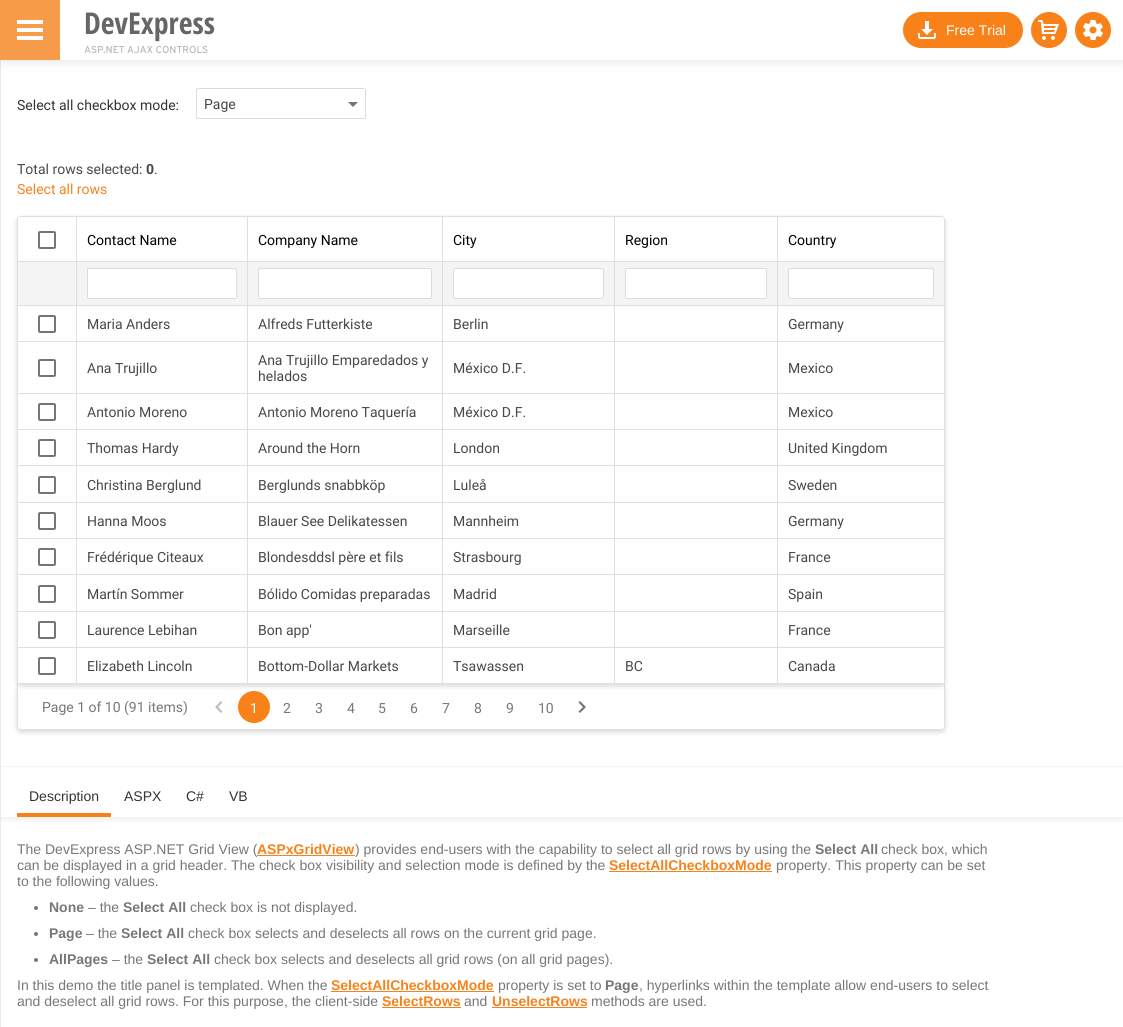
#include <cairo.h>
#include <math.h>
#include <stddef.h>


static void round_rect(cairo_t *cr, double x, double y, double w, double h, double r) {
    cairo_new_sub_path(cr);
    cairo_arc(cr, x + w - r, y + h - r, r, 0, M_PI / 2);
    cairo_arc(cr, x + r, y + h - r, r, M_PI / 2, M_PI);
    cairo_arc(cr, x + r, y + r, r, M_PI, 1.5 * M_PI);
    cairo_arc(cr, x + w - r, y + r, r, 1.5 * M_PI, 2 * M_PI);
    cairo_close_path(cr);
}

static void shadow(cairo_t *cr, double x, double y, double w, double h, double r, double blur, double alpha) {
    cairo_push_group_with_content(cr, CAIRO_CONTENT_ALPHA);
    cairo_set_operator(cr, CAIRO_OPERATOR_SOURCE);
    for (int i = 15; i >= -15 && fmin(w, h) + blur * i / 3 > 0; i -= 2) {
        double e = blur * i / 6;
        cairo_set_source_rgba(cr, 0, 0, 0, alpha * erfc((i - 1) / 8.5) / 2);
        round_rect(cr, x - e, y - e, w + 2 * e, h + 2 * e, fmax(0, fmin(r + e + blur * .6, fmin(w, h) / 2 + e)));
        cairo_fill(cr);
    }
    cairo_pattern_t *soft = cairo_pop_group(cr);
    cairo_mask(cr, soft);
    cairo_pattern_destroy(soft);
}

static void picture(cairo_t *cr, const char *path, double x, double y, double w, double h) {
    cairo_surface_t *image = cairo_image_surface_create_from_png(path);
    cairo_save(cr);
    cairo_set_source_surface(cr, image, x, y);
    cairo_rectangle(cr, x, y, w, h);
    cairo_fill(cr);
    cairo_restore(cr);
    cairo_surface_destroy(image);
}

int main(void) {
    cairo_surface_t *surface = cairo_image_surface_create(CAIRO_FORMAT_RGB24, 1123, 1027);
    cairo_t *cr = cairo_create(surface);
    cairo_font_options_t *options = cairo_font_options_create();
    cairo_font_options_set_hint_metrics(options, CAIRO_HINT_METRICS_OFF);
    cairo_font_options_set_hint_style(options, CAIRO_HINT_STYLE_NONE);
    cairo_set_font_options(cr, options);
    cairo_set_miter_limit(cr, 4);
    cairo_set_source_rgb(cr, 1, 1, 1);
    cairo_paint(cr);
    cairo_set_source_rgb(cr, 0.957, 0.957, 0.957);
    cairo_rectangle(cr, 1, 766, 1122, 1);
    cairo_fill(cr);
    cairo_save(cr);
    cairo_rectangle(cr, 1, 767, 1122, 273);
    cairo_clip(cr);
    cairo_rectangle(cr, 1, 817, 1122, 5);
    cairo_clip(cr);
    cairo_set_source_rgb(cr, 0, 0, 0);
    shadow(cr, 1, 769, 1122, 50, 0, 5, 0.08);
    cairo_restore(cr);
    cairo_set_source_rgb(cr, 0.918, 0.914, 0.914);
    cairo_rectangle(cr, 0, 60, 1, 967);
    cairo_fill(cr);
    cairo_set_source_rgb(cr, 0, 0, 0);
    shadow(cr, 0, 2, 1123, 60, 0, 5, 0.1);
    cairo_set_source_rgb(cr, 1, 1, 1);
    cairo_rectangle(cr, 60, 0, 1063, 60);
    cairo_fill(cr);
    cairo_set_source_rgb(cr, 0.976, 0.612, 0.29);
    cairo_rectangle(cr, 0, 0, 60, 60);
    cairo_fill(cr);
    picture(cr, "img1.png", 17, 20, 26, 20);
    cairo_select_font_face(cr, "Open Sans Condensed", CAIRO_FONT_SLANT_NORMAL, CAIRO_FONT_WEIGHT_BOLD);
    cairo_set_font_size(cr, 30);
    cairo_set_source_rgb(cr, 0.4, 0.4, 0.4);
    cairo_move_to(cr, 84, 34);
    cairo_show_text(cr, "DevExpress");
    cairo_select_font_face(cr, "Overpass SemiBold", CAIRO_FONT_SLANT_NORMAL, CAIRO_FONT_WEIGHT_NORMAL);
    cairo_set_font_size(cr, 10);
    cairo_set_source_rgb(cr, 0.729, 0.729, 0.729);
    cairo_move_to(cr, 84, 53);
    cairo_show_text(cr, "ASP.NET AJAX CONTROLS");
    cairo_set_source_rgb(cr, 0.969, 0.506, 0.098);
    round_rect(cr, 903, 12, 120, 36, 18);
    cairo_fill(cr);
    picture(cr, "img2.png", 918, 21, 18, 18);
    cairo_select_font_face(cr, "Liberation Sans", CAIRO_FONT_SLANT_NORMAL, CAIRO_FONT_WEIGHT_NORMAL);
    cairo_set_font_size(cr, 14);
    cairo_set_source_rgb(cr, 1, 1, 1);
    cairo_move_to(cr, 946, 35);
    cairo_show_text(cr, "Free Trial");
    cairo_set_source_rgb(cr, 0.969, 0.506, 0.098);
    cairo_new_path(cr);
    cairo_arc(cr, 1049, 30, 18, 0, 2 * M_PI);
    cairo_fill(cr);
    picture(cr, "img3.png", 1038, 20, 21, 20);
    cairo_arc(cr, 1093, 30, 18, 0, 2 * M_PI);
    cairo_fill(cr);
    picture(cr, "img4.png", 1083, 20, 20, 20);
    cairo_select_font_face(cr, "Roboto", CAIRO_FONT_SLANT_NORMAL, CAIRO_FONT_WEIGHT_NORMAL);
    cairo_set_source_rgb(cr, 0.2, 0.2, 0.2);
    cairo_move_to(cr, 17, 110);
    cairo_show_text(cr, "Select all checkbox mode:");
    round_rect(cr, 196.5, 88.5, 169, 30, 1.5);
    cairo_set_source_rgb(cr, 0.863, 0.863, 0.863);
    cairo_set_line_width(cr, 1);
    cairo_stroke(cr);
    cairo_set_source_rgb(cr, 0.282, 0.282, 0.282);
    cairo_move_to(cr, 204, 109);
    cairo_show_text(cr, "Page");
    cairo_set_source_rgb(cr, 1, 1, 1);
    cairo_rectangle(cr, 364, 89, 1, 29);
    cairo_fill(cr);
    picture(cr, "img5.png", 348, 102, 10, 5);
    cairo_set_source_rgb(cr, 0.282, 0.282, 0.282);
    cairo_move_to(cr, 17, 174);
    cairo_show_text(cr, "Total rows selected:");
    cairo_select_font_face(cr, "Roboto", CAIRO_FONT_SLANT_NORMAL, CAIRO_FONT_WEIGHT_BOLD);
    cairo_move_to(cr, 146, 174);
    cairo_show_text(cr, "0");
    cairo_select_font_face(cr, "Roboto", CAIRO_FONT_SLANT_NORMAL, CAIRO_FONT_WEIGHT_NORMAL);
    cairo_move_to(cr, 154, 174);
    cairo_show_text(cr, ".");
    cairo_set_source_rgb(cr, 0.969, 0.506, 0.098);
    cairo_move_to(cr, 17, 194);
    cairo_show_text(cr, "Select all rows");
    cairo_set_source_rgb(cr, 0, 0, 0);
    shadow(cr, 17, 686, 928, 46, 4, 2.5, 0.16);
    cairo_set_source_rgb(cr, 1, 1, 1);
    cairo_new_path(cr);
    cairo_move_to(cr, 17, 684);
    cairo_line_to(cr, 945, 684);
    cairo_line_to(cr, 945, 726);
    cairo_curve_to(cr, 945, 728, 943, 730, 941, 730);
    cairo_line_to(cr, 21, 730);
    cairo_curve_to(cr, 19, 730, 17, 728, 17, 726);
    cairo_close_path(cr);
    cairo_fill(cr);
    cairo_set_source_rgb(cr, 0.875, 0.875, 0.875);
    cairo_set_fill_rule(cr, CAIRO_FILL_RULE_EVEN_ODD);
    cairo_new_path(cr);
    cairo_move_to(cr, 17, 684);
    cairo_line_to(cr, 945, 684);
    cairo_line_to(cr, 945, 726);
    cairo_curve_to(cr, 945, 728, 943, 730, 941, 730);
    cairo_line_to(cr, 21, 730);
    cairo_curve_to(cr, 19, 730, 17, 728, 17, 726);
    cairo_close_path(cr);
    cairo_move_to(cr, 18, 684);
    cairo_line_to(cr, 944, 684);
    cairo_line_to(cr, 944, 726);
    cairo_curve_to(cr, 944, 728, 943, 729, 941, 729);
    cairo_line_to(cr, 21, 729);
    cairo_curve_to(cr, 19, 729, 18, 728, 18, 726);
    cairo_close_path(cr);
    cairo_fill(cr);
    cairo_set_source_rgb(cr, 0.969, 0.506, 0.098);
    cairo_arc(cr, 254, 707, 16, 0, 2 * M_PI);
    cairo_fill(cr);
    cairo_set_source_rgb(cr, 0, 0, 0);
    shadow(cr, 17, 218, 928, 468, 4, 2.5, 0.16);
    cairo_set_source_rgb(cr, 1, 1, 1);
    cairo_new_path(cr);
    cairo_move_to(cr, 21, 217);
    cairo_line_to(cr, 941, 217);
    cairo_curve_to(cr, 942.5, 217, 944, 218.5, 944, 220);
    cairo_line_to(cr, 944, 684);
    cairo_line_to(cr, 18, 684);
    cairo_line_to(cr, 18, 220);
    cairo_curve_to(cr, 18, 218.5, 19.5, 217, 21, 217);
    cairo_close_path(cr);
    cairo_fill(cr);
    cairo_set_source_rgb(cr, 0.875, 0.875, 0.875);
    cairo_new_path(cr);
    cairo_move_to(cr, 21, 216);
    cairo_line_to(cr, 941, 216);
    cairo_curve_to(cr, 943, 216, 945, 218, 945, 220);
    cairo_line_to(cr, 945, 684);
    cairo_line_to(cr, 17, 684);
    cairo_line_to(cr, 17, 220);
    cairo_curve_to(cr, 17, 218, 19, 216, 21, 216);
    cairo_close_path(cr);
    cairo_move_to(cr, 21, 217);
    cairo_line_to(cr, 941, 217);
    cairo_curve_to(cr, 943, 217, 944, 218, 944, 220);
    cairo_line_to(cr, 944, 684);
    cairo_line_to(cr, 18, 684);
    cairo_line_to(cr, 18, 220);
    cairo_curve_to(cr, 18, 218, 19, 217, 21, 217);
    cairo_close_path(cr);
    cairo_fill(cr);
    cairo_set_source_rgb(cr, 1, 1, 1);
    cairo_new_path(cr);
    cairo_move_to(cr, 21, 217);
    cairo_line_to(cr, 76, 217);
    cairo_line_to(cr, 76, 261);
    cairo_line_to(cr, 18, 261);
    cairo_line_to(cr, 18, 220);
    cairo_curve_to(cr, 18, 218.5, 19.5, 217, 21, 217);
    cairo_close_path(cr);
    cairo_fill(cr);
    cairo_set_source_rgb(cr, 0.875, 0.875, 0.875);
    cairo_rectangle(cr, 76, 217, 1, 467);
    cairo_fill(cr);
    cairo_rectangle(cr, 18, 261, 59, 1);
    cairo_fill(cr);
    picture(cr, "img6.png", 38, 231, 18, 18);
    cairo_rectangle(cr, 247, 217, 1, 467);
    cairo_fill(cr);
    cairo_rectangle(cr, 77, 261, 171, 1);
    cairo_fill(cr);
    cairo_set_source_rgb(cr, 0, 0, 0);
    cairo_move_to(cr, 87, 245);
    cairo_show_text(cr, "Contact Name");
    cairo_set_source_rgb(cr, 0.875, 0.875, 0.875);
    cairo_rectangle(cr, 442, 217, 1, 467);
    cairo_fill(cr);
    cairo_rectangle(cr, 248, 261, 195, 1);
    cairo_fill(cr);
    cairo_set_source_rgb(cr, 0, 0, 0);
    cairo_move_to(cr, 258, 245);
    cairo_show_text(cr, "Company Name");
    cairo_set_source_rgb(cr, 0.875, 0.875, 0.875);
    cairo_rectangle(cr, 614, 217, 1, 467);
    cairo_fill(cr);
    cairo_rectangle(cr, 443, 261, 172, 1);
    cairo_fill(cr);
    cairo_set_source_rgb(cr, 0, 0, 0);
    cairo_move_to(cr, 453, 245);
    cairo_show_text(cr, "City");
    cairo_set_source_rgb(cr, 0.875, 0.875, 0.875);
    cairo_rectangle(cr, 777, 217, 1, 467);
    cairo_fill(cr);
    cairo_rectangle(cr, 615, 261, 329, 1);
    cairo_fill(cr);
    cairo_set_source_rgb(cr, 0, 0, 0);
    cairo_move_to(cr, 625, 245);
    cairo_show_text(cr, "Region");
    cairo_set_source_rgb(cr, 1, 1, 1);
    cairo_new_path(cr);
    cairo_move_to(cr, 778, 217);
    cairo_line_to(cr, 941, 217);
    cairo_curve_to(cr, 942.5, 217, 944, 218.5, 944, 220);
    cairo_line_to(cr, 944, 261);
    cairo_line_to(cr, 778, 261);
    cairo_close_path(cr);
    cairo_fill(cr);
    cairo_set_source_rgb(cr, 0, 0, 0);
    cairo_move_to(cr, 788, 245);
    cairo_show_text(cr, "Country");
    cairo_set_source_rgb(cr, 0.957, 0.957, 0.957);
    cairo_rectangle(cr, 18, 262, 58, 43);
    cairo_fill(cr);
    cairo_set_source_rgb(cr, 0.875, 0.875, 0.875);
    cairo_rectangle(cr, 18, 305, 926, 1);
    cairo_fill(cr);
    cairo_set_source_rgb(cr, 0.957, 0.957, 0.957);
    cairo_rectangle(cr, 77, 262, 170, 43);
    cairo_fill(cr);
    cairo_set_source_rgb(cr, 1, 1, 1);
    round_rect(cr, 87.5, 268.5, 149, 30, 1.5);
    cairo_fill_preserve(cr);
    cairo_set_source_rgb(cr, 0.863, 0.863, 0.863);
    cairo_stroke(cr);
    cairo_set_source_rgb(cr, 0.957, 0.957, 0.957);
    cairo_rectangle(cr, 248, 262, 194, 43);
    cairo_fill(cr);
    cairo_set_source_rgb(cr, 1, 1, 1);
    round_rect(cr, 258.5, 268.5, 173, 30, 1.5);
    cairo_fill_preserve(cr);
    cairo_set_source_rgb(cr, 0.863, 0.863, 0.863);
    cairo_stroke(cr);
    cairo_set_source_rgb(cr, 0.957, 0.957, 0.957);
    cairo_rectangle(cr, 443, 262, 171, 43);
    cairo_fill(cr);
    cairo_set_source_rgb(cr, 1, 1, 1);
    round_rect(cr, 453.5, 268.5, 150, 30, 1.5);
    cairo_fill_preserve(cr);
    cairo_set_source_rgb(cr, 0.863, 0.863, 0.863);
    cairo_stroke(cr);
    cairo_set_source_rgb(cr, 0.957, 0.957, 0.957);
    cairo_rectangle(cr, 615, 262, 162, 43);
    cairo_fill(cr);
    cairo_set_source_rgb(cr, 1, 1, 1);
    round_rect(cr, 625.5, 268.5, 141, 30, 1.5);
    cairo_fill_preserve(cr);
    cairo_set_source_rgb(cr, 0.863, 0.863, 0.863);
    cairo_stroke(cr);
    cairo_set_source_rgb(cr, 0.957, 0.957, 0.957);
    cairo_rectangle(cr, 778, 262, 166, 43);
    cairo_fill(cr);
    cairo_set_source_rgb(cr, 1, 1, 1);
    round_rect(cr, 788.5, 268.5, 145, 30, 1.5);
    cairo_fill_preserve(cr);
    cairo_set_source_rgb(cr, 0.863, 0.863, 0.863);
    cairo_stroke(cr);
    cairo_set_source_rgb(cr, 0.875, 0.875, 0.875);
    cairo_rectangle(cr, 18, 341, 926, 1);
    cairo_fill(cr);
    picture(cr, "img6.png", 38, 315, 18, 18);
    cairo_set_source_rgb(cr, 0.282, 0.282, 0.282);
    cairo_move_to(cr, 87, 329);
    cairo_show_text(cr, "Maria Anders");
    cairo_move_to(cr, 258, 329);
    cairo_show_text(cr, "Alfreds Futterkiste");
    cairo_move_to(cr, 453, 329);
    cairo_show_text(cr, "Berlin");
    cairo_move_to(cr, 788, 329);
    cairo_show_text(cr, "Germany");
    cairo_move_to(cr, 258, 365);
    cairo_show_text(cr, "Ana Trujillo Emparedados y");
    cairo_move_to(cr, 258, 381);
    cairo_show_text(cr, "helados");
    cairo_set_source_rgb(cr, 0.875, 0.875, 0.875);
    cairo_rectangle(cr, 18, 393, 926, 1);
    cairo_fill(cr);
    picture(cr, "img6.png", 38, 359, 18, 18);
    cairo_set_source_rgb(cr, 0.282, 0.282, 0.282);
    cairo_move_to(cr, 87, 373);
    cairo_show_text(cr, "Ana Trujillo");
    cairo_move_to(cr, 453, 373);
    cairo_show_text(cr, "México D.F.");
    cairo_move_to(cr, 788, 373);
    cairo_show_text(cr, "Mexico");
    cairo_set_source_rgb(cr, 0.875, 0.875, 0.875);
    cairo_rectangle(cr, 18, 429, 926, 1);
    cairo_fill(cr);
    picture(cr, "img6.png", 38, 403, 18, 18);
    cairo_set_source_rgb(cr, 0.282, 0.282, 0.282);
    cairo_move_to(cr, 87, 417);
    cairo_show_text(cr, "Antonio Moreno");
    cairo_move_to(cr, 258, 417);
    cairo_show_text(cr, "Antonio Moreno Taquería");
    cairo_move_to(cr, 453, 417);
    cairo_show_text(cr, "México D.F.");
    cairo_move_to(cr, 788, 417);
    cairo_show_text(cr, "Mexico");
    cairo_set_source_rgb(cr, 0.875, 0.875, 0.875);
    cairo_rectangle(cr, 18, 465, 926, 1);
    cairo_fill(cr);
    picture(cr, "img6.png", 38, 439, 18, 18);
    cairo_set_source_rgb(cr, 0.282, 0.282, 0.282);
    cairo_move_to(cr, 87, 453);
    cairo_show_text(cr, "Thomas Hardy");
    cairo_move_to(cr, 258, 453);
    cairo_show_text(cr, "Around the Horn");
    cairo_move_to(cr, 453, 453);
    cairo_show_text(cr, "London");
    cairo_move_to(cr, 788, 453);
    cairo_show_text(cr, "United Kingdom");
    cairo_set_source_rgb(cr, 0.875, 0.875, 0.875);
    cairo_rectangle(cr, 18, 502, 926, 1);
    cairo_fill(cr);
    picture(cr, "img6.png", 38, 476, 18, 18);
    cairo_set_source_rgb(cr, 0.282, 0.282, 0.282);
    cairo_move_to(cr, 87, 490);
    cairo_show_text(cr, "Christina Berglund");
    cairo_move_to(cr, 258, 490);
    cairo_show_text(cr, "Berglunds snabbköp");
    cairo_move_to(cr, 453, 490);
    cairo_show_text(cr, "Luleå");
    cairo_move_to(cr, 788, 490);
    cairo_show_text(cr, "Sweden");
    cairo_set_source_rgb(cr, 0.875, 0.875, 0.875);
    cairo_rectangle(cr, 18, 538, 926, 1);
    cairo_fill(cr);
    picture(cr, "img6.png", 38, 512, 18, 18);
    cairo_set_source_rgb(cr, 0.282, 0.282, 0.282);
    cairo_move_to(cr, 87, 526);
    cairo_show_text(cr, "Hanna Moos");
    cairo_move_to(cr, 258, 526);
    cairo_show_text(cr, "Blauer See Delikatessen");
    cairo_move_to(cr, 453, 526);
    cairo_show_text(cr, "Mannheim");
    cairo_move_to(cr, 788, 526);
    cairo_show_text(cr, "Germany");
    cairo_set_source_rgb(cr, 0.875, 0.875, 0.875);
    cairo_rectangle(cr, 18, 574, 926, 1);
    cairo_fill(cr);
    picture(cr, "img6.png", 38, 548, 18, 18);
    cairo_set_source_rgb(cr, 0.282, 0.282, 0.282);
    cairo_move_to(cr, 87, 562);
    cairo_show_text(cr, "Frédérique Citeaux");
    cairo_move_to(cr, 258, 562);
    cairo_show_text(cr, "Blondesddsl père et fils");
    cairo_move_to(cr, 453, 562);
    cairo_show_text(cr, "Strasbourg");
    cairo_move_to(cr, 788, 562);
    cairo_show_text(cr, "France");
    cairo_set_source_rgb(cr, 0.875, 0.875, 0.875);
    cairo_rectangle(cr, 18, 611, 926, 1);
    cairo_fill(cr);
    picture(cr, "img6.png", 38, 585, 18, 18);
    cairo_set_source_rgb(cr, 0.282, 0.282, 0.282);
    cairo_move_to(cr, 87, 599);
    cairo_show_text(cr, "Martín Sommer");
    cairo_move_to(cr, 258, 599);
    cairo_show_text(cr, "Bólido Comidas preparadas");
    cairo_move_to(cr, 453, 599);
    cairo_show_text(cr, "Madrid");
    cairo_move_to(cr, 788, 599);
    cairo_show_text(cr, "Spain");
    cairo_set_source_rgb(cr, 0.875, 0.875, 0.875);
    cairo_rectangle(cr, 18, 647, 926, 1);
    cairo_fill(cr);
    picture(cr, "img6.png", 38, 621, 18, 18);
    cairo_set_source_rgb(cr, 0.282, 0.282, 0.282);
    cairo_move_to(cr, 87, 635);
    cairo_show_text(cr, "Laurence Lebihan");
    cairo_move_to(cr, 258, 635);
    cairo_show_text(cr, "Bon app'");
    cairo_move_to(cr, 453, 635);
    cairo_show_text(cr, "Marseille");
    cairo_move_to(cr, 788, 635);
    cairo_show_text(cr, "France");
    cairo_set_source_rgb(cr, 0.875, 0.875, 0.875);
    cairo_rectangle(cr, 18, 683, 926, 1);
    cairo_fill(cr);
    picture(cr, "img6.png", 38, 657, 18, 18);
    cairo_set_source_rgb(cr, 0.282, 0.282, 0.282);
    cairo_move_to(cr, 87, 671);
    cairo_show_text(cr, "Elizabeth Lincoln");
    cairo_move_to(cr, 258, 671);
    cairo_show_text(cr, "Bottom-Dollar Markets");
    cairo_move_to(cr, 453, 671);
    cairo_show_text(cr, "Tsawassen");
    cairo_move_to(cr, 625, 671);
    cairo_show_text(cr, "BC");
    cairo_move_to(cr, 788, 671);
    cairo_show_text(cr, "Canada");
    cairo_set_source_rgb(cr, 0.467, 0.467, 0.467);
    cairo_move_to(cr, 42, 712);
    cairo_show_text(cr, "Page 1 of 10 (91 items)");
    picture(cr, "img7.png", 215, 701, 8, 12);
    cairo_set_source_rgb(cr, 1, 1, 1);
    cairo_move_to(cr, 250, 713);
    cairo_show_text(cr, "1");
    cairo_set_source_rgb(cr, 0.467, 0.467, 0.467);
    cairo_move_to(cr, 283, 713);
    cairo_show_text(cr, "2");
    cairo_move_to(cr, 315, 713);
    cairo_show_text(cr, "3");
    cairo_move_to(cr, 347, 713);
    cairo_show_text(cr, "4");
    cairo_move_to(cr, 378, 713);
    cairo_show_text(cr, "5");
    cairo_move_to(cr, 410, 713);
    cairo_show_text(cr, "6");
    cairo_move_to(cr, 442, 713);
    cairo_show_text(cr, "7");
    cairo_move_to(cr, 474, 713);
    cairo_show_text(cr, "8");
    cairo_move_to(cr, 506, 713);
    cairo_show_text(cr, "9");
    cairo_move_to(cr, 538, 713);
    cairo_show_text(cr, "10");
    picture(cr, "img8.png", 578, 701, 8, 12);
    cairo_set_source_rgb(cr, 0.969, 0.506, 0.098);
    cairo_rectangle(cr, 17, 813, 94, 4);
    cairo_fill(cr);
    cairo_select_font_face(cr, "Liberation Sans", CAIRO_FONT_SLANT_NORMAL, CAIRO_FONT_WEIGHT_NORMAL);
    cairo_set_source_rgb(cr, 0.2, 0.2, 0.2);
    cairo_move_to(cr, 29, 801);
    cairo_show_text(cr, "Description");
    cairo_move_to(cr, 124, 801);
    cairo_show_text(cr, "ASPX");
    cairo_move_to(cr, 186, 801);
    cairo_show_text(cr, "C#");
    cairo_move_to(cr, 229, 801);
    cairo_show_text(cr, "VB");
    cairo_set_source_rgb(cr, 0.467, 0.467, 0.467);
    cairo_move_to(cr, 17, 854);
    cairo_show_text(cr, "The DevExpress ASP.NET Grid View (");
    cairo_select_font_face(cr, "Liberation Sans", CAIRO_FONT_SLANT_NORMAL, CAIRO_FONT_WEIGHT_BOLD);
    cairo_set_source_rgb(cr, 0.969, 0.506, 0.098);
    cairo_move_to(cr, 257, 854);
    cairo_show_text(cr, "ASPxGridView");
    cairo_rectangle(cr, 257, 855, 98, 1);
    cairo_fill(cr);
    cairo_select_font_face(cr, "Liberation Sans", CAIRO_FONT_SLANT_NORMAL, CAIRO_FONT_WEIGHT_NORMAL);
    cairo_set_source_rgb(cr, 0.467, 0.467, 0.467);
    cairo_move_to(cr, 355, 854);
    cairo_show_text(cr, ") provides end-users with the capability to select all grid rows by using the");
    cairo_select_font_face(cr, "Liberation Sans", CAIRO_FONT_SLANT_NORMAL, CAIRO_FONT_WEIGHT_BOLD);
    cairo_move_to(cr, 815, 854);
    cairo_show_text(cr, "Select All");
    cairo_select_font_face(cr, "Liberation Sans", CAIRO_FONT_SLANT_NORMAL, CAIRO_FONT_WEIGHT_NORMAL);
    cairo_move_to(cr, 881, 854);
    cairo_show_text(cr, "check box, which");
    cairo_move_to(cr, 17, 870);
    cairo_show_text(cr, "can be displayed in a grid header. The check box visibility and selection mode is defined by the");
    cairo_select_font_face(cr, "Liberation Sans", CAIRO_FONT_SLANT_NORMAL, CAIRO_FONT_WEIGHT_BOLD);
    cairo_set_source_rgb(cr, 0.969, 0.506, 0.098);
    cairo_move_to(cr, 609, 870);
    cairo_show_text(cr, "SelectAllCheckboxMode");
    cairo_rectangle(cr, 609, 871, 163, 1);
    cairo_fill(cr);
    cairo_select_font_face(cr, "Liberation Sans", CAIRO_FONT_SLANT_NORMAL, CAIRO_FONT_WEIGHT_NORMAL);
    cairo_set_source_rgb(cr, 0.467, 0.467, 0.467);
    cairo_move_to(cr, 776, 870);
    cairo_show_text(cr, "property. This property can be set");
    cairo_move_to(cr, 17, 886);
    cairo_show_text(cr, "to the following values.");
    cairo_new_path(cr);
    cairo_arc(cr, 36, 908, 2, 0, 2 * M_PI);
    cairo_fill(cr);
    cairo_select_font_face(cr, "Liberation Sans", CAIRO_FONT_SLANT_NORMAL, CAIRO_FONT_WEIGHT_BOLD);
    cairo_move_to(cr, 49, 912);
    cairo_show_text(cr, "None");
    cairo_select_font_face(cr, "Liberation Sans", CAIRO_FONT_SLANT_NORMAL, CAIRO_FONT_WEIGHT_NORMAL);
    cairo_move_to(cr, 88, 912);
    cairo_show_text(cr, "– the");
    cairo_select_font_face(cr, "Liberation Sans", CAIRO_FONT_SLANT_NORMAL, CAIRO_FONT_WEIGHT_BOLD);
    cairo_move_to(cr, 123, 912);
    cairo_show_text(cr, "Select All");
    cairo_select_font_face(cr, "Liberation Sans", CAIRO_FONT_SLANT_NORMAL, CAIRO_FONT_WEIGHT_NORMAL);
    cairo_move_to(cr, 190, 912);
    cairo_show_text(cr, "check box is not displayed.");
    cairo_new_path(cr);
    cairo_arc(cr, 36, 934, 2, 0, 2 * M_PI);
    cairo_fill(cr);
    cairo_select_font_face(cr, "Liberation Sans", CAIRO_FONT_SLANT_NORMAL, CAIRO_FONT_WEIGHT_BOLD);
    cairo_move_to(cr, 49, 938);
    cairo_show_text(cr, "Page");
    cairo_select_font_face(cr, "Liberation Sans", CAIRO_FONT_SLANT_NORMAL, CAIRO_FONT_WEIGHT_NORMAL);
    cairo_move_to(cr, 86, 938);
    cairo_show_text(cr, "– the");
    cairo_select_font_face(cr, "Liberation Sans", CAIRO_FONT_SLANT_NORMAL, CAIRO_FONT_WEIGHT_BOLD);
    cairo_move_to(cr, 121, 938);
    cairo_show_text(cr, "Select All");
    cairo_select_font_face(cr, "Liberation Sans", CAIRO_FONT_SLANT_NORMAL, CAIRO_FONT_WEIGHT_NORMAL);
    cairo_move_to(cr, 188, 938);
    cairo_show_text(cr, "check box selects and deselects all rows on the current grid page.");
    cairo_new_path(cr);
    cairo_arc(cr, 36, 960, 2, 0, 2 * M_PI);
    cairo_fill(cr);
    cairo_select_font_face(cr, "Liberation Sans", CAIRO_FONT_SLANT_NORMAL, CAIRO_FONT_WEIGHT_BOLD);
    cairo_move_to(cr, 49, 964);
    cairo_show_text(cr, "AllPages");
    cairo_select_font_face(cr, "Liberation Sans", CAIRO_FONT_SLANT_NORMAL, CAIRO_FONT_WEIGHT_NORMAL);
    cairo_move_to(cr, 112, 964);
    cairo_show_text(cr, "– the");
    cairo_select_font_face(cr, "Liberation Sans", CAIRO_FONT_SLANT_NORMAL, CAIRO_FONT_WEIGHT_BOLD);
    cairo_move_to(cr, 147, 964);
    cairo_show_text(cr, "Select All");
    cairo_select_font_face(cr, "Liberation Sans", CAIRO_FONT_SLANT_NORMAL, CAIRO_FONT_WEIGHT_NORMAL);
    cairo_move_to(cr, 214, 964);
    cairo_show_text(cr, "check box selects and deselects all grid rows (on all grid pages).");
    cairo_move_to(cr, 17, 990);
    cairo_show_text(cr, "In this demo the title panel is templated. When the");
    cairo_select_font_face(cr, "Liberation Sans", CAIRO_FONT_SLANT_NORMAL, CAIRO_FONT_WEIGHT_BOLD);
    cairo_set_source_rgb(cr, 0.969, 0.506, 0.098);
    cairo_move_to(cr, 331, 990);
    cairo_show_text(cr, "SelectAllCheckboxMode");
    cairo_rectangle(cr, 331, 991, 163, 1);
    cairo_fill(cr);
    cairo_select_font_face(cr, "Liberation Sans", CAIRO_FONT_SLANT_NORMAL, CAIRO_FONT_WEIGHT_NORMAL);
    cairo_set_source_rgb(cr, 0.467, 0.467, 0.467);
    cairo_move_to(cr, 498, 990);
    cairo_show_text(cr, "property is set to");
    cairo_select_font_face(cr, "Liberation Sans", CAIRO_FONT_SLANT_NORMAL, CAIRO_FONT_WEIGHT_BOLD);
    cairo_move_to(cr, 605, 990);
    cairo_show_text(cr, "Page");
    cairo_select_font_face(cr, "Liberation Sans", CAIRO_FONT_SLANT_NORMAL, CAIRO_FONT_WEIGHT_NORMAL);
    cairo_move_to(cr, 639, 990);
    cairo_show_text(cr, ", hyperlinks within the template allow end-users to select");
    cairo_move_to(cr, 17, 1006);
    cairo_show_text(cr, "and deselect all grid rows. For this purpose, the client-side");
    cairo_select_font_face(cr, "Liberation Sans", CAIRO_FONT_SLANT_NORMAL, CAIRO_FONT_WEIGHT_BOLD);
    cairo_set_source_rgb(cr, 0.969, 0.506, 0.098);
    cairo_move_to(cr, 382, 1006);
    cairo_show_text(cr, "SelectRows");
    cairo_rectangle(cr, 382, 1007, 79, 1);
    cairo_fill(cr);
    cairo_select_font_face(cr, "Liberation Sans", CAIRO_FONT_SLANT_NORMAL, CAIRO_FONT_WEIGHT_NORMAL);
    cairo_set_source_rgb(cr, 0.467, 0.467, 0.467);
    cairo_move_to(cr, 464, 1006);
    cairo_show_text(cr, "and");
    cairo_select_font_face(cr, "Liberation Sans", CAIRO_FONT_SLANT_NORMAL, CAIRO_FONT_WEIGHT_BOLD);
    cairo_set_source_rgb(cr, 0.969, 0.506, 0.098);
    cairo_move_to(cr, 492, 1006);
    cairo_show_text(cr, "UnselectRows");
    cairo_rectangle(cr, 492, 1007, 95, 1);
    cairo_fill(cr);
    cairo_select_font_face(cr, "Liberation Sans", CAIRO_FONT_SLANT_NORMAL, CAIRO_FONT_WEIGHT_NORMAL);
    cairo_set_source_rgb(cr, 0.467, 0.467, 0.467);
    cairo_move_to(cr, 591, 1006);
    cairo_show_text(cr, "methods are used.");
    cairo_surface_write_to_png(surface, "page.png");
    cairo_font_options_destroy(options);
    cairo_destroy(cr);
    cairo_surface_destroy(surface);
    return 0;
}
